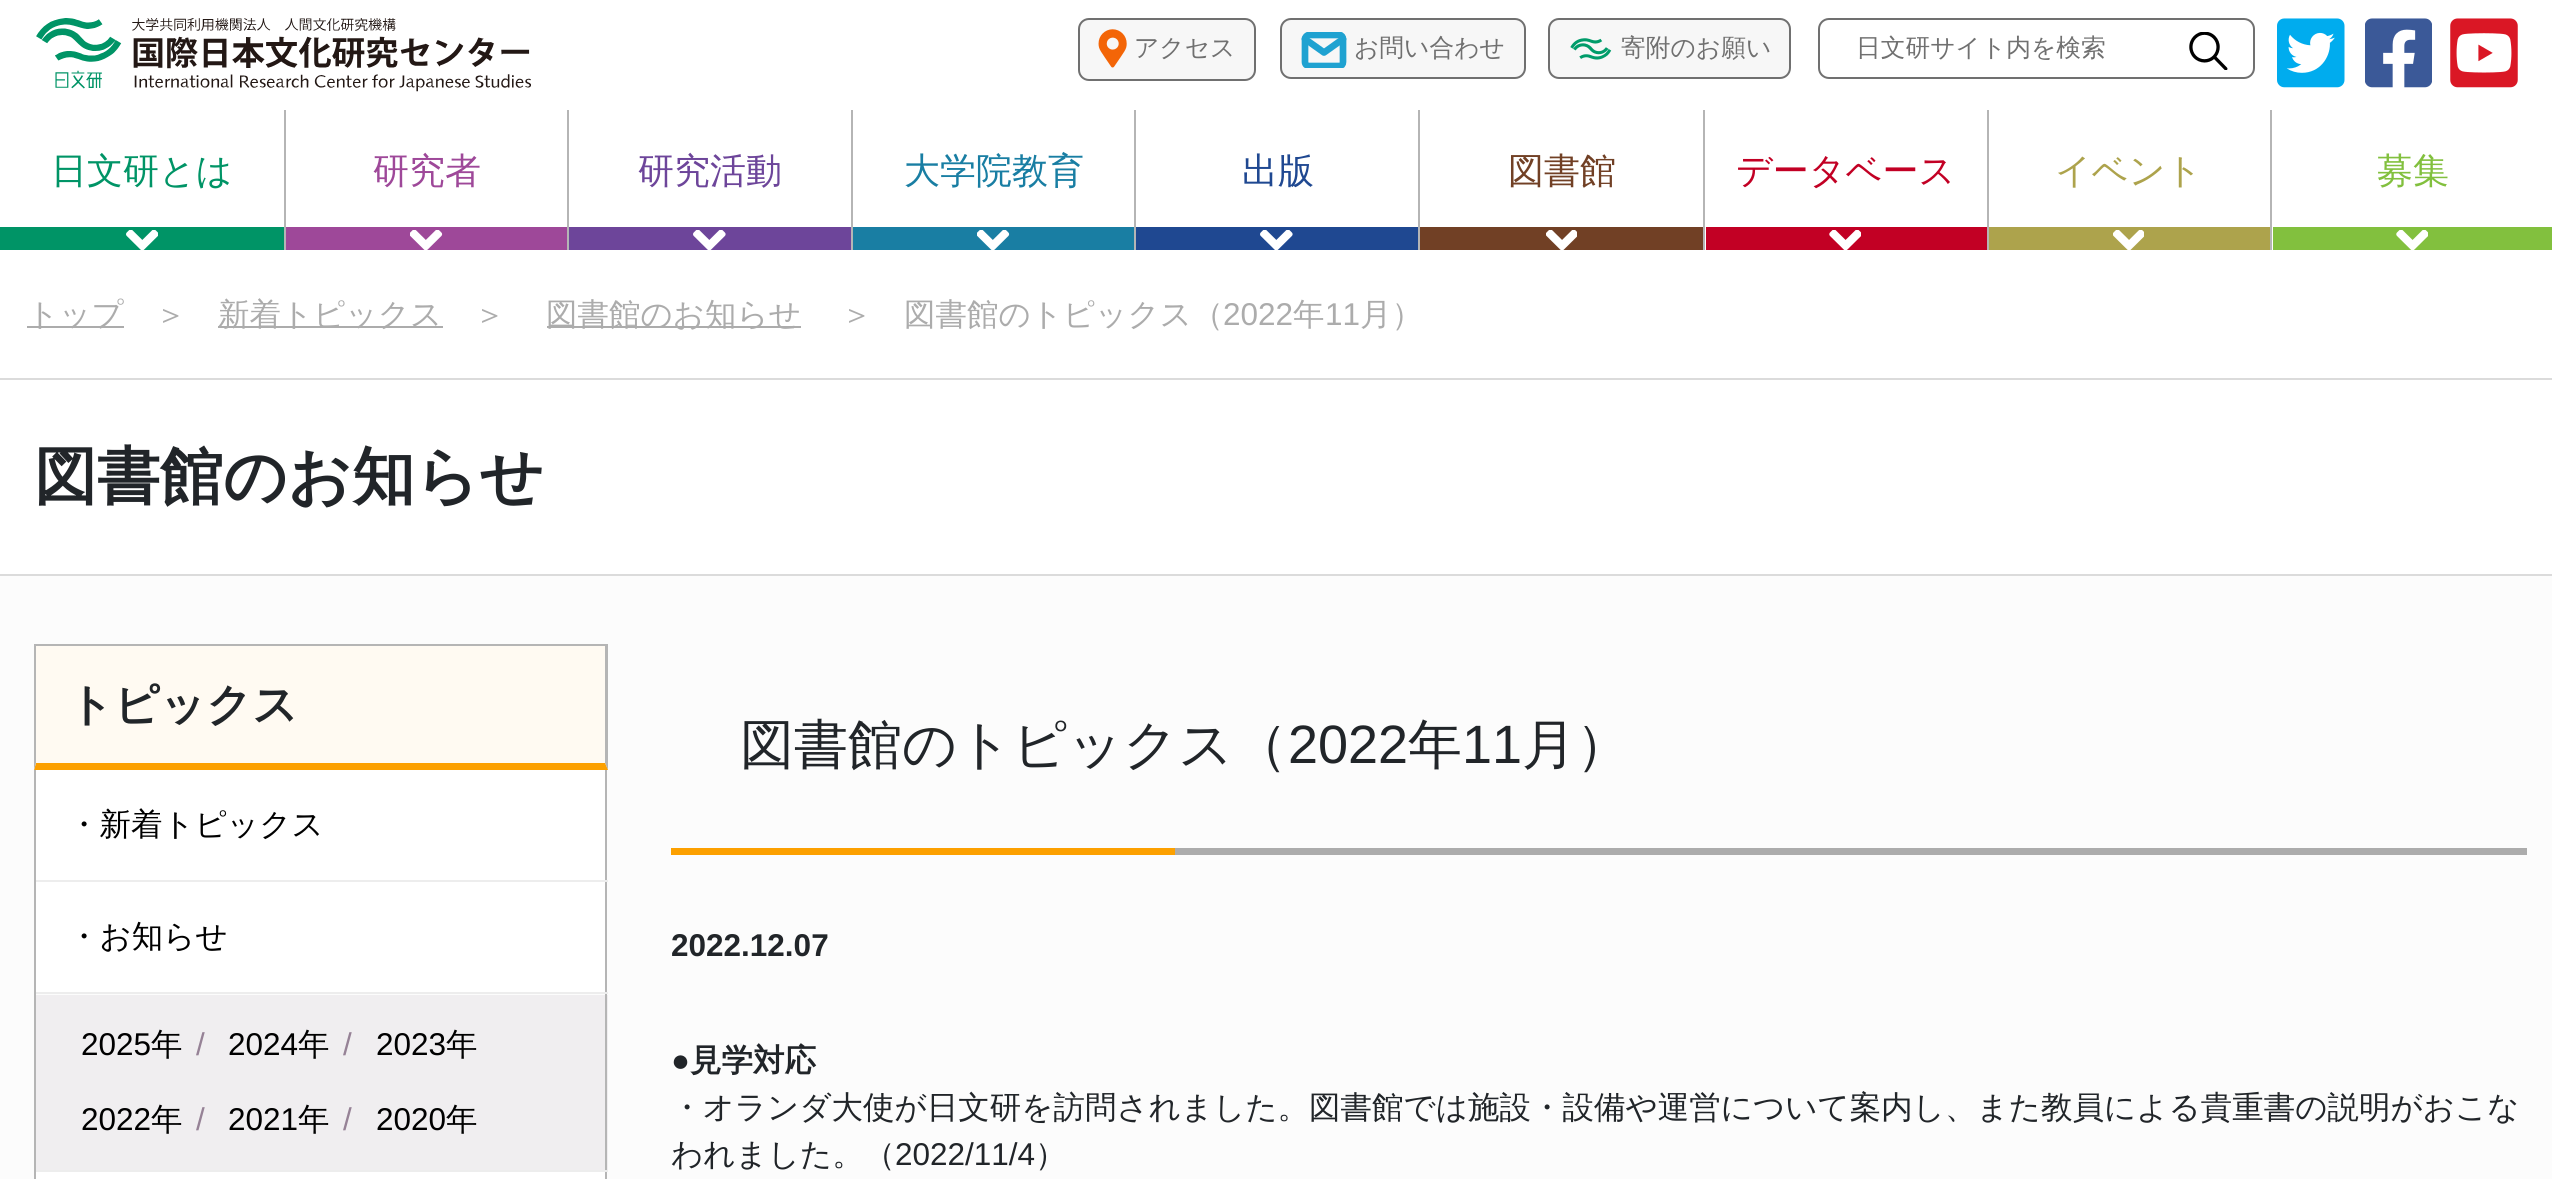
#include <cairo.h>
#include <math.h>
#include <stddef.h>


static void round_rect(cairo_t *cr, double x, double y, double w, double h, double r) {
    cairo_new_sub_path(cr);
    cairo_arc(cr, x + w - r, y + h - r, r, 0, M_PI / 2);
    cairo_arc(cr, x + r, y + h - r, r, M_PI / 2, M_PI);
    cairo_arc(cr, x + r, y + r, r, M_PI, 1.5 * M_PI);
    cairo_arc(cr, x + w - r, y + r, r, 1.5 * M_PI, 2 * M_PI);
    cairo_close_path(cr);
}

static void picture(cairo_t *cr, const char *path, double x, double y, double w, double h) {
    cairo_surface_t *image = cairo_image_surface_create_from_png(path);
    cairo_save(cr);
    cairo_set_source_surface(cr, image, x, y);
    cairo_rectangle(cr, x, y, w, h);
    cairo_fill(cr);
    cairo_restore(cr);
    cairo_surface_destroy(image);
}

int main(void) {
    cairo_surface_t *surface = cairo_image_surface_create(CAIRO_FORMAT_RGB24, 2552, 1179);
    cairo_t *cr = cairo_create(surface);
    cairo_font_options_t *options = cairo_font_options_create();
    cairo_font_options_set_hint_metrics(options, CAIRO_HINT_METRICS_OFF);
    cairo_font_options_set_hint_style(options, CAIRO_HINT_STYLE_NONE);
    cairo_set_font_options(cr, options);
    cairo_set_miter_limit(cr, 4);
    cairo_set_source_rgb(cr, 1, 1, 1);
    cairo_paint(cr);
    picture(cr, "img1.png", 36, 18, 495, 74);
    cairo_set_source_rgb(cr, 0.965, 0.965, 0.965);
    round_rect(cr, 1079, 19, 176, 61, 10);
    cairo_fill_preserve(cr);
    cairo_set_source_rgb(cr, 0.439, 0.439, 0.439);
    cairo_stroke(cr);
    picture(cr, "img2.png", 1098, 29, 29, 39);
    cairo_select_font_face(cr, "WenQuanYi Zen Hei Medium", CAIRO_FONT_SLANT_NORMAL, CAIRO_FONT_WEIGHT_NORMAL);
    cairo_set_font_size(cr, 24.75);
    cairo_move_to(cr, 1134, 56);
    cairo_show_text(cr, "アクセス");
    cairo_set_source_rgb(cr, 0.965, 0.965, 0.965);
    round_rect(cr, 1281, 19, 244, 59, 10);
    cairo_fill_preserve(cr);
    cairo_set_source_rgb(cr, 0.439, 0.439, 0.439);
    cairo_stroke(cr);
    cairo_save(cr);
    cairo_rectangle(cr, 1301, 32, 47, 36);
    cairo_clip(cr);
    cairo_new_path(cr);
    cairo_move_to(cr, 1309, 35);
    cairo_line_to(cr, 1339.5, 35);
    cairo_curve_to(cr, 1341.5, 35, 1343, 37, 1343, 39);
    cairo_line_to(cr, 1343, 62);
    cairo_curve_to(cr, 1343, 64.5, 1341.5, 66, 1339.5, 66);
    cairo_line_to(cr, 1309, 66);
    cairo_curve_to(cr, 1307, 66, 1305, 64.5, 1305, 62);
    cairo_line_to(cr, 1305, 39);
    cairo_curve_to(cr, 1305, 37, 1307, 35, 1309, 35);
    cairo_close_path(cr);
    cairo_set_source_rgb(cr, 0.122, 0.635, 0.82);
    cairo_set_line_width(cr, 6.7);
    cairo_set_line_cap(cr, CAIRO_LINE_CAP_ROUND);
    cairo_set_line_join(cr, CAIRO_LINE_JOIN_ROUND);
    cairo_stroke(cr);
    cairo_restore(cr);
    cairo_new_path(cr);
    cairo_move_to(cr, 1343, 39);
    cairo_line_to(cr, 1324, 52.5);
    cairo_line_to(cr, 1305, 39);
    cairo_set_source_rgb(cr, 0.122, 0.635, 0.82);
    cairo_set_line_width(cr, 6.7);
    cairo_set_line_cap(cr, CAIRO_LINE_CAP_ROUND);
    cairo_set_line_join(cr, CAIRO_LINE_JOIN_ROUND);
    cairo_stroke(cr);
    cairo_set_source_rgb(cr, 0.439, 0.439, 0.439);
    cairo_move_to(cr, 1354, 56);
    cairo_show_text(cr, "お問い合わせ");
    cairo_set_source_rgb(cr, 0.965, 0.965, 0.965);
    round_rect(cr, 1549, 19, 241, 59, 10);
    cairo_fill_preserve(cr);
    cairo_set_source_rgb(cr, 0.439, 0.439, 0.439);
    cairo_set_line_width(cr, 2);
    cairo_set_line_cap(cr, CAIRO_LINE_CAP_BUTT);
    cairo_set_line_join(cr, CAIRO_LINE_JOIN_MITER);
    cairo_stroke(cr);
    picture(cr, "img3.png", 1570, 38, 42, 22);
    cairo_move_to(cr, 1621, 56);
    cairo_show_text(cr, "寄附のお願い");
    round_rect(cr, 1819, 19, 435, 59, 10);
    cairo_stroke(cr);
    cairo_move_to(cr, 1856, 56);
    cairo_show_text(cr, "日文研サイト内を検索");
    picture(cr, "img4.png", 2189, 32, 39, 38);
    picture(cr, "img5.png", 2277, 18, 68, 70);
    picture(cr, "img6.png", 2365, 18, 67, 70);
    picture(cr, "img7.png", 2450, 18, 68, 70);
    cairo_set_source_rgb(cr, 0, 0.58, 0.4);
    cairo_rectangle(cr, 0, 227, 284, 23);
    cairo_fill(cr);
    cairo_set_font_size(cr, 36);
    cairo_move_to(cr, 51, 183);
    cairo_show_text(cr, "日文研とは");
    picture(cr, "img8.png", 126, 230, 32, 20);
    cairo_set_source_rgb(cr, 0.71, 0.71, 0.71);
    cairo_rectangle(cr, 284, 110, 2, 140);
    cairo_fill(cr);
    cairo_set_source_rgb(cr, 0.62, 0.282, 0.6);
    cairo_rectangle(cr, 286, 227, 281, 23);
    cairo_fill(cr);
    cairo_move_to(cr, 373, 183);
    cairo_show_text(cr, "研究者");
    picture(cr, "img9.png", 410, 230, 33, 20);
    cairo_set_source_rgb(cr, 0.71, 0.71, 0.71);
    cairo_rectangle(cr, 567, 110, 2, 140);
    cairo_fill(cr);
    cairo_set_source_rgb(cr, 0.427, 0.271, 0.604);
    cairo_rectangle(cr, 569, 227, 282, 23);
    cairo_fill(cr);
    cairo_move_to(cr, 638, 183);
    cairo_show_text(cr, "研究活動");
    picture(cr, "img10.png", 693, 230, 33, 20);
    cairo_set_source_rgb(cr, 0.71, 0.71, 0.71);
    cairo_rectangle(cr, 851, 110, 2, 140);
    cairo_fill(cr);
    cairo_set_source_rgb(cr, 0.098, 0.494, 0.639);
    cairo_rectangle(cr, 853, 227, 281, 23);
    cairo_fill(cr);
    cairo_move_to(cr, 904, 183);
    cairo_show_text(cr, "大学院教育");
    picture(cr, "img11.png", 977, 230, 33, 20);
    cairo_set_source_rgb(cr, 0.71, 0.71, 0.71);
    cairo_rectangle(cr, 1134, 110, 2, 140);
    cairo_fill(cr);
    cairo_set_source_rgb(cr, 0.122, 0.282, 0.569);
    cairo_rectangle(cr, 1136, 227, 282, 23);
    cairo_fill(cr);
    cairo_move_to(cr, 1242, 183);
    cairo_show_text(cr, "出版");
    picture(cr, "img12.png", 1260, 230, 33, 20);
    cairo_set_source_rgb(cr, 0.71, 0.71, 0.71);
    cairo_rectangle(cr, 1418, 110, 2, 140);
    cairo_fill(cr);
    cairo_set_source_rgb(cr, 0.443, 0.251, 0.145);
    cairo_rectangle(cr, 1420, 227, 283, 23);
    cairo_fill(cr);
    cairo_move_to(cr, 1508, 183);
    cairo_show_text(cr, "図書館");
    picture(cr, "img13.png", 1546, 230, 31, 20);
    cairo_set_source_rgb(cr, 0.71, 0.71, 0.71);
    cairo_rectangle(cr, 1703, 110, 2, 140);
    cairo_fill(cr);
    cairo_set_source_rgb(cr, 0.761, 0, 0.141);
    cairo_rectangle(cr, 1706, 227, 281, 23);
    cairo_fill(cr);
    cairo_move_to(cr, 1736, 183);
    cairo_show_text(cr, "データベース");
    picture(cr, "img14.png", 1829, 230, 32, 20);
    cairo_set_source_rgb(cr, 0.71, 0.71, 0.71);
    cairo_rectangle(cr, 1987, 110, 2, 140);
    cairo_fill(cr);
    cairo_set_source_rgb(cr, 0.678, 0.639, 0.298);
    cairo_rectangle(cr, 1989, 227, 281, 23);
    cairo_fill(cr);
    cairo_move_to(cr, 2055, 183);
    cairo_show_text(cr, "イベント");
    picture(cr, "img15.png", 2113, 230, 31, 20);
    cairo_set_source_rgb(cr, 0.71, 0.71, 0.71);
    cairo_rectangle(cr, 2270, 110, 2, 140);
    cairo_fill(cr);
    cairo_set_source_rgb(cr, 0.51, 0.753, 0.243);
    cairo_rectangle(cr, 2273, 227, 279, 23);
    cairo_fill(cr);
    cairo_move_to(cr, 2377, 183);
    cairo_show_text(cr, "募集");
    picture(cr, "img16.png", 2396, 230, 32, 20);
    cairo_set_source_rgb(cr, 0.859, 0.859, 0.859);
    cairo_rectangle(cr, 0, 378, 2552, 2);
    cairo_fill(cr);
    cairo_set_source_rgb(cr, 0.675, 0.675, 0.675);
    cairo_rectangle(cr, 27, 326, 97, 2);
    cairo_fill(cr);
    cairo_set_font_size(cr, 31.5);
    cairo_move_to(cr, 27, 325);
    cairo_show_text(cr, "トップ");
    cairo_move_to(cr, 155, 325);
    cairo_show_text(cr, "＞");
    cairo_rectangle(cr, 218, 326, 225, 2);
    cairo_fill(cr);
    cairo_move_to(cr, 218, 325);
    cairo_show_text(cr, "新着トピックス");
    cairo_move_to(cr, 474, 325);
    cairo_show_text(cr, "＞");
    cairo_rectangle(cr, 547, 326, 254, 2);
    cairo_fill(cr);
    cairo_move_to(cr, 546, 325);
    cairo_show_text(cr, "図書館のお知らせ");
    cairo_move_to(cr, 841, 325);
    cairo_show_text(cr, "＞");
    cairo_move_to(cr, 904, 325);
    cairo_show_text(cr, "図書館のトピックス（");
    cairo_select_font_face(cr, "Liberation Sans", CAIRO_FONT_SLANT_NORMAL, CAIRO_FONT_WEIGHT_NORMAL);
    cairo_move_to(cr, 1223, 325);
    cairo_show_text(cr, "2022");
    cairo_select_font_face(cr, "WenQuanYi Zen Hei Medium", CAIRO_FONT_SLANT_NORMAL, CAIRO_FONT_WEIGHT_NORMAL);
    cairo_move_to(cr, 1293, 325);
    cairo_show_text(cr, "年");
    cairo_select_font_face(cr, "Liberation Sans", CAIRO_FONT_SLANT_NORMAL, CAIRO_FONT_WEIGHT_NORMAL);
    cairo_move_to(cr, 1325, 325);
    cairo_show_text(cr, "11");
    cairo_select_font_face(cr, "WenQuanYi Zen Hei Medium", CAIRO_FONT_SLANT_NORMAL, CAIRO_FONT_WEIGHT_NORMAL);
    cairo_move_to(cr, 1360, 325);
    cairo_show_text(cr, "月）");
    cairo_set_source_rgb(cr, 0.859, 0.859, 0.859);
    cairo_rectangle(cr, 0, 574, 2552, 2);
    cairo_fill(cr);
    cairo_select_font_face(cr, "WenQuanYi Zen Hei", CAIRO_FONT_SLANT_NORMAL, CAIRO_FONT_WEIGHT_BOLD);
    cairo_set_font_size(cr, 63);
    cairo_set_source_rgb(cr, 0.129, 0.145, 0.161);
    cairo_move_to(cr, 34, 498);
    cairo_show_text(cr, "図書館のお知らせ");
    cairo_set_source_rgb(cr, 0.988, 0.988, 0.988);
    cairo_rectangle(cr, 0, 576, 2552, 603);
    cairo_fill(cr);
    cairo_set_source_rgb(cr, 1, 0.98, 0.949);
    cairo_rectangle(cr, 36, 646, 569, 117);
    cairo_fill(cr);
    cairo_set_source_rgb(cr, 0.71, 0.71, 0.71);
    cairo_rectangle(cr, 34, 644, 574, 2);
    cairo_fill(cr);
    cairo_new_path(cr);
    cairo_move_to(cr, 608, 644);
    cairo_line_to(cr, 608, 770);
    cairo_line_to(cr, 605, 763);
    cairo_line_to(cr, 605, 646);
    cairo_close_path(cr);
    cairo_fill(cr);
    cairo_set_source_rgb(cr, 0.988, 0.627, 0);
    cairo_new_path(cr);
    cairo_move_to(cr, 608, 770);
    cairo_line_to(cr, 34, 770);
    cairo_line_to(cr, 36, 763);
    cairo_line_to(cr, 605, 763);
    cairo_close_path(cr);
    cairo_fill(cr);
    cairo_set_source_rgb(cr, 0.71, 0.71, 0.71);
    cairo_new_path(cr);
    cairo_move_to(cr, 34, 770);
    cairo_line_to(cr, 34, 644);
    cairo_line_to(cr, 36, 646);
    cairo_line_to(cr, 36, 763);
    cairo_close_path(cr);
    cairo_fill(cr);
    cairo_set_font_size(cr, 45);
    cairo_set_source_rgb(cr, 0.129, 0.145, 0.161);
    cairo_move_to(cr, 68, 720);
    cairo_show_text(cr, "トピックス");
    cairo_set_source_rgb(cr, 0.71, 0.71, 0.71);
    cairo_rectangle(cr, 605, 770, 2, 225);
    cairo_fill(cr);
    cairo_set_source_rgb(cr, 0.929, 0.929, 0.929);
    cairo_rectangle(cr, 34, 880, 574, 2);
    cairo_fill(cr);
    cairo_set_source_rgb(cr, 0.71, 0.71, 0.71);
    cairo_rectangle(cr, 34, 770, 2, 112);
    cairo_fill(cr);
    cairo_set_source_rgb(cr, 1, 1, 1);
    cairo_rectangle(cr, 36, 770, 569, 110);
    cairo_fill(cr);
    cairo_select_font_face(cr, "WenQuanYi Zen Hei Medium", CAIRO_FONT_SLANT_NORMAL, CAIRO_FONT_WEIGHT_NORMAL);
    cairo_set_font_size(cr, 31.5);
    cairo_set_source_rgb(cr, 0, 0, 0);
    cairo_move_to(cr, 68, 835);
    cairo_show_text(cr, "・新着トピックス");
    cairo_set_source_rgb(cr, 0.929, 0.929, 0.929);
    cairo_rectangle(cr, 34, 992, 574, 2);
    cairo_fill(cr);
    cairo_set_source_rgb(cr, 0.71, 0.71, 0.71);
    cairo_rectangle(cr, 34, 882, 2, 113);
    cairo_fill(cr);
    cairo_set_source_rgb(cr, 1, 1, 1);
    cairo_rectangle(cr, 36, 882, 569, 110);
    cairo_fill(cr);
    cairo_set_source_rgb(cr, 0, 0, 0);
    cairo_move_to(cr, 68, 947);
    cairo_show_text(cr, "・お知らせ");
    cairo_set_source_rgb(cr, 0.941, 0.933, 0.941);
    cairo_rectangle(cr, 36, 995, 572, 175);
    cairo_fill(cr);
    cairo_set_source_rgb(cr, 0.71, 0.71, 0.71);
    cairo_rectangle(cr, 605, 995, 2, 184);
    cairo_fill(cr);
    cairo_set_source_rgb(cr, 0.929, 0.929, 0.929);
    cairo_rectangle(cr, 34, 1170, 574, 2);
    cairo_fill(cr);
    cairo_set_source_rgb(cr, 0.71, 0.71, 0.71);
    cairo_rectangle(cr, 34, 995, 2, 184);
    cairo_fill(cr);
    cairo_select_font_face(cr, "Liberation Sans", CAIRO_FONT_SLANT_NORMAL, CAIRO_FONT_WEIGHT_NORMAL);
    cairo_set_source_rgb(cr, 0, 0, 0);
    cairo_move_to(cr, 81, 1055);
    cairo_show_text(cr, "2025");
    cairo_select_font_face(cr, "WenQuanYi Zen Hei Medium", CAIRO_FONT_SLANT_NORMAL, CAIRO_FONT_WEIGHT_NORMAL);
    cairo_move_to(cr, 151, 1055);
    cairo_show_text(cr, "年");
    cairo_select_font_face(cr, "Liberation Sans", CAIRO_FONT_SLANT_NORMAL, CAIRO_FONT_WEIGHT_NORMAL);
    cairo_set_source_rgb(cr, 0.588, 0.51, 0.588);
    cairo_move_to(cr, 196, 1055);
    cairo_show_text(cr, "/");
    cairo_set_source_rgb(cr, 0, 0, 0);
    cairo_move_to(cr, 228, 1055);
    cairo_show_text(cr, "2024");
    cairo_select_font_face(cr, "WenQuanYi Zen Hei Medium", CAIRO_FONT_SLANT_NORMAL, CAIRO_FONT_WEIGHT_NORMAL);
    cairo_move_to(cr, 298, 1055);
    cairo_show_text(cr, "年");
    cairo_select_font_face(cr, "Liberation Sans", CAIRO_FONT_SLANT_NORMAL, CAIRO_FONT_WEIGHT_NORMAL);
    cairo_set_source_rgb(cr, 0.588, 0.51, 0.588);
    cairo_move_to(cr, 343, 1055);
    cairo_show_text(cr, "/");
    cairo_set_source_rgb(cr, 0, 0, 0);
    cairo_move_to(cr, 376, 1055);
    cairo_show_text(cr, "2023");
    cairo_select_font_face(cr, "WenQuanYi Zen Hei Medium", CAIRO_FONT_SLANT_NORMAL, CAIRO_FONT_WEIGHT_NORMAL);
    cairo_move_to(cr, 446, 1055);
    cairo_show_text(cr, "年");
    cairo_select_font_face(cr, "Liberation Sans", CAIRO_FONT_SLANT_NORMAL, CAIRO_FONT_WEIGHT_NORMAL);
    cairo_move_to(cr, 81, 1130);
    cairo_show_text(cr, "2022");
    cairo_select_font_face(cr, "WenQuanYi Zen Hei Medium", CAIRO_FONT_SLANT_NORMAL, CAIRO_FONT_WEIGHT_NORMAL);
    cairo_move_to(cr, 151, 1130);
    cairo_show_text(cr, "年");
    cairo_select_font_face(cr, "Liberation Sans", CAIRO_FONT_SLANT_NORMAL, CAIRO_FONT_WEIGHT_NORMAL);
    cairo_set_source_rgb(cr, 0.588, 0.51, 0.588);
    cairo_move_to(cr, 196, 1130);
    cairo_show_text(cr, "/");
    cairo_set_source_rgb(cr, 0, 0, 0);
    cairo_move_to(cr, 228, 1130);
    cairo_show_text(cr, "2021");
    cairo_select_font_face(cr, "WenQuanYi Zen Hei Medium", CAIRO_FONT_SLANT_NORMAL, CAIRO_FONT_WEIGHT_NORMAL);
    cairo_move_to(cr, 298, 1130);
    cairo_show_text(cr, "年");
    cairo_select_font_face(cr, "Liberation Sans", CAIRO_FONT_SLANT_NORMAL, CAIRO_FONT_WEIGHT_NORMAL);
    cairo_set_source_rgb(cr, 0.588, 0.51, 0.588);
    cairo_move_to(cr, 343, 1130);
    cairo_show_text(cr, "/");
    cairo_set_source_rgb(cr, 0, 0, 0);
    cairo_move_to(cr, 376, 1130);
    cairo_show_text(cr, "2020");
    cairo_select_font_face(cr, "WenQuanYi Zen Hei Medium", CAIRO_FONT_SLANT_NORMAL, CAIRO_FONT_WEIGHT_NORMAL);
    cairo_move_to(cr, 446, 1130);
    cairo_show_text(cr, "年");
    cairo_set_source_rgb(cr, 1, 1, 1);
    cairo_rectangle(cr, 36, 1172, 569, 7);
    cairo_fill(cr);
    cairo_set_source_rgb(cr, 0.675, 0.675, 0.675);
    cairo_rectangle(cr, 1175, 848, 1352, 7);
    cairo_fill(cr);
    cairo_set_font_size(cr, 54);
    cairo_set_source_rgb(cr, 0.129, 0.145, 0.161);
    cairo_move_to(cr, 740, 763);
    cairo_show_text(cr, "図書館のトピックス（");
    cairo_select_font_face(cr, "Liberation Sans", CAIRO_FONT_SLANT_NORMAL, CAIRO_FONT_WEIGHT_NORMAL);
    cairo_move_to(cr, 1288, 763);
    cairo_show_text(cr, "2022");
    cairo_select_font_face(cr, "WenQuanYi Zen Hei Medium", CAIRO_FONT_SLANT_NORMAL, CAIRO_FONT_WEIGHT_NORMAL);
    cairo_move_to(cr, 1408, 763);
    cairo_show_text(cr, "年");
    cairo_select_font_face(cr, "Liberation Sans", CAIRO_FONT_SLANT_NORMAL, CAIRO_FONT_WEIGHT_NORMAL);
    cairo_move_to(cr, 1462, 763);
    cairo_show_text(cr, "11");
    cairo_select_font_face(cr, "WenQuanYi Zen Hei Medium", CAIRO_FONT_SLANT_NORMAL, CAIRO_FONT_WEIGHT_NORMAL);
    cairo_move_to(cr, 1522, 763);
    cairo_show_text(cr, "月）");
    cairo_set_source_rgb(cr, 0.988, 0.627, 0);
    cairo_rectangle(cr, 671, 848, 504, 7);
    cairo_fill(cr);
    cairo_select_font_face(cr, "Liberation Sans", CAIRO_FONT_SLANT_NORMAL, CAIRO_FONT_WEIGHT_BOLD);
    cairo_set_font_size(cr, 31.5);
    cairo_set_source_rgb(cr, 0.129, 0.145, 0.161);
    cairo_move_to(cr, 671, 956);
    cairo_show_text(cr, "2022.12.07");
    cairo_move_to(cr, 671, 1071);
    cairo_show_text(cr, "●");
    cairo_select_font_face(cr, "WenQuanYi Zen Hei", CAIRO_FONT_SLANT_NORMAL, CAIRO_FONT_WEIGHT_BOLD);
    cairo_move_to(cr, 690, 1071);
    cairo_show_text(cr, "見学対応");
    cairo_select_font_face(cr, "WenQuanYi Zen Hei Medium", CAIRO_FONT_SLANT_NORMAL, CAIRO_FONT_WEIGHT_NORMAL);
    cairo_move_to(cr, 671, 1118);
    cairo_show_text(cr, "・オランダ大使が日文研を訪問されました。図書館では施設・設備や運営について案内し、また教員による貴重書の説明がおこな");
    cairo_move_to(cr, 671, 1165);
    cairo_show_text(cr, "われました。（");
    cairo_select_font_face(cr, "Liberation Sans", CAIRO_FONT_SLANT_NORMAL, CAIRO_FONT_WEIGHT_NORMAL);
    cairo_move_to(cr, 895, 1165);
    cairo_show_text(cr, "2022/11/4");
    cairo_select_font_face(cr, "WenQuanYi Zen Hei Medium", CAIRO_FONT_SLANT_NORMAL, CAIRO_FONT_WEIGHT_NORMAL);
    cairo_move_to(cr, 1035, 1165);
    cairo_show_text(cr, "）");
    cairo_surface_write_to_png(surface, "page.png");
    cairo_font_options_destroy(options);
    cairo_destroy(cr);
    cairo_surface_destroy(surface);
    return 0;
}
